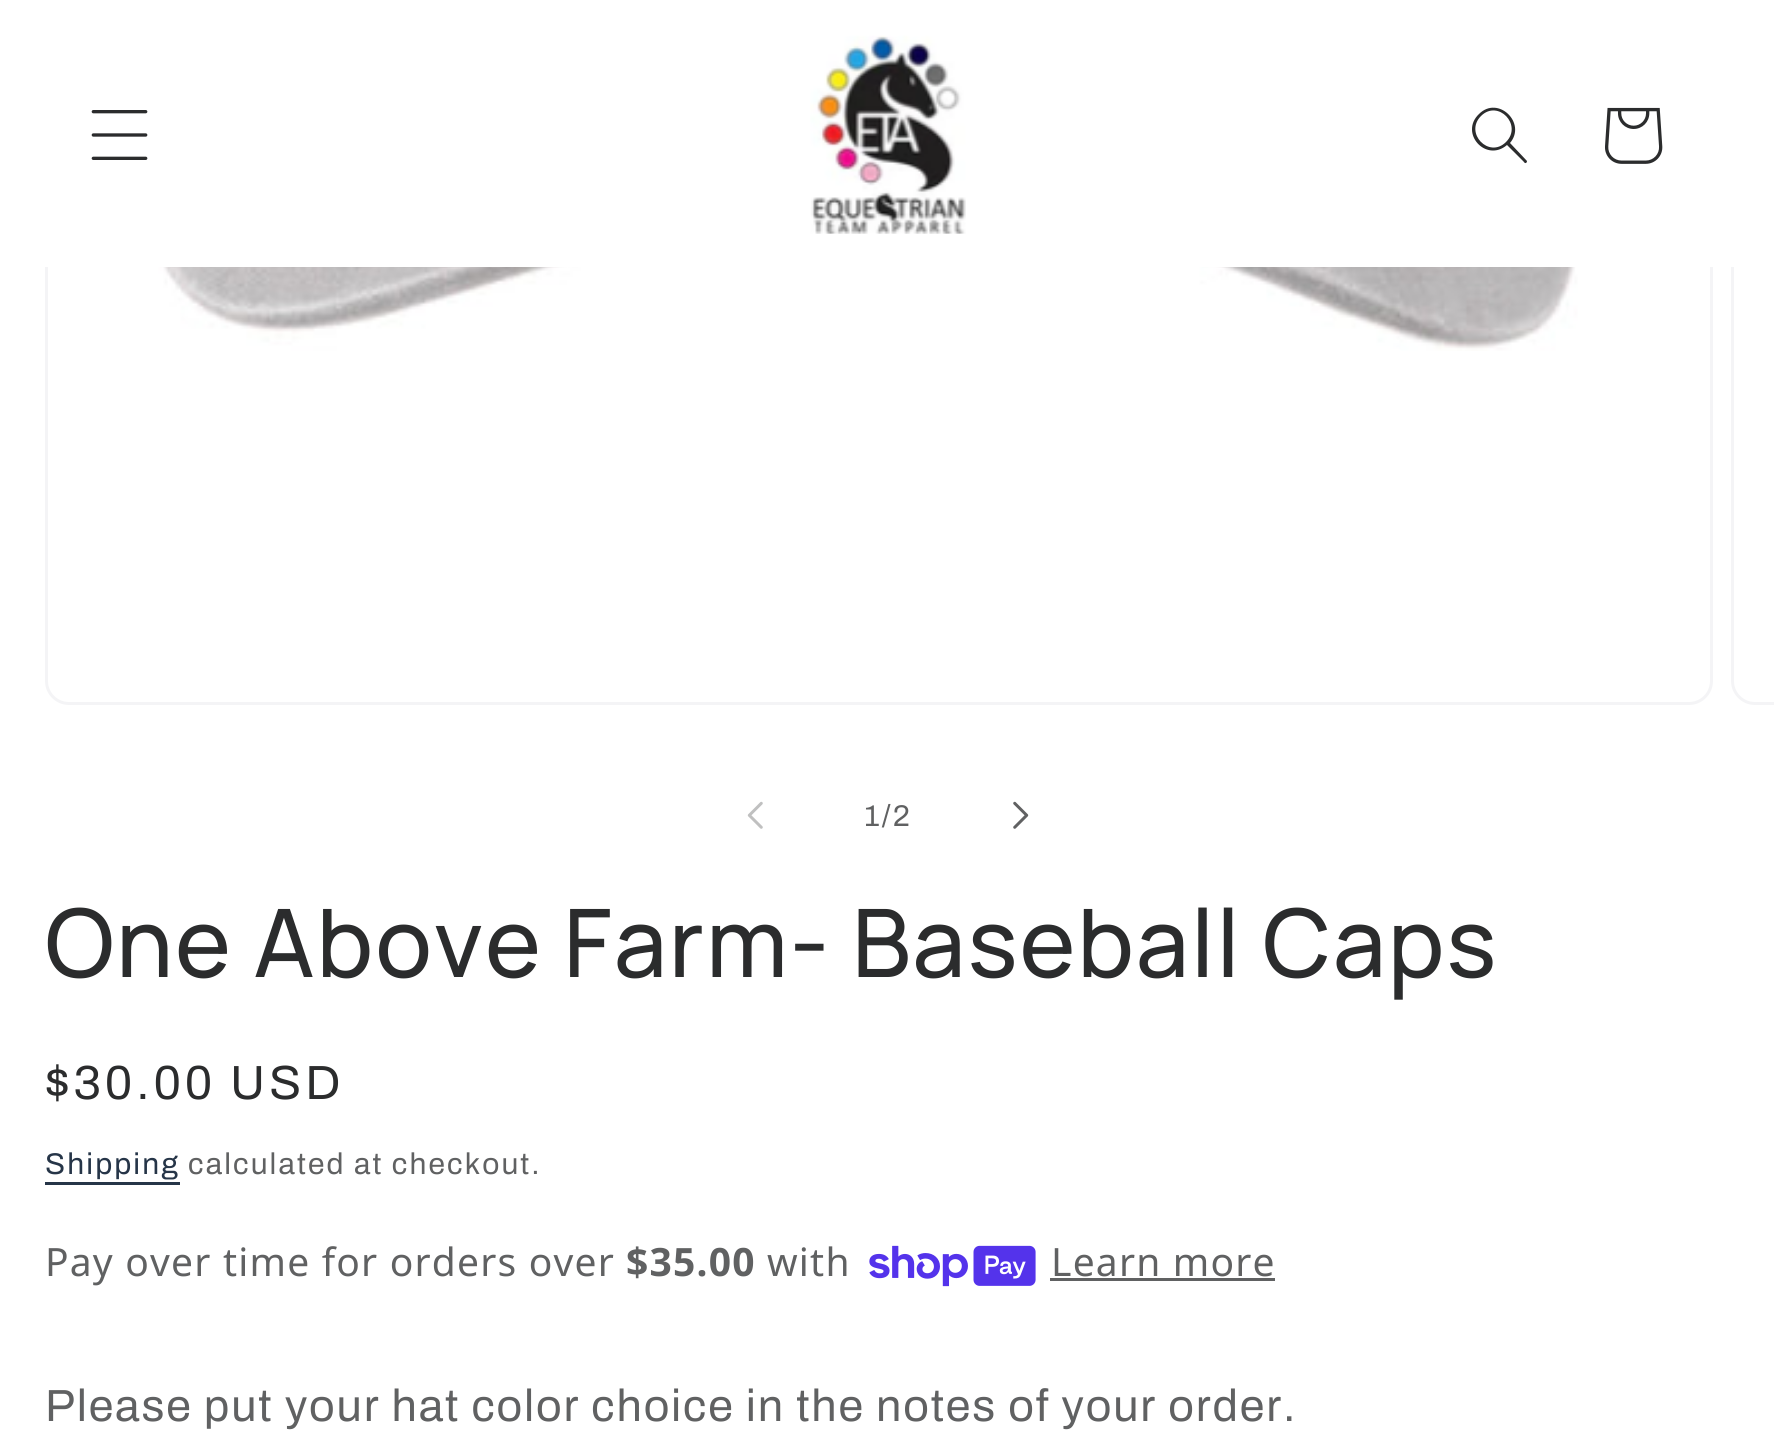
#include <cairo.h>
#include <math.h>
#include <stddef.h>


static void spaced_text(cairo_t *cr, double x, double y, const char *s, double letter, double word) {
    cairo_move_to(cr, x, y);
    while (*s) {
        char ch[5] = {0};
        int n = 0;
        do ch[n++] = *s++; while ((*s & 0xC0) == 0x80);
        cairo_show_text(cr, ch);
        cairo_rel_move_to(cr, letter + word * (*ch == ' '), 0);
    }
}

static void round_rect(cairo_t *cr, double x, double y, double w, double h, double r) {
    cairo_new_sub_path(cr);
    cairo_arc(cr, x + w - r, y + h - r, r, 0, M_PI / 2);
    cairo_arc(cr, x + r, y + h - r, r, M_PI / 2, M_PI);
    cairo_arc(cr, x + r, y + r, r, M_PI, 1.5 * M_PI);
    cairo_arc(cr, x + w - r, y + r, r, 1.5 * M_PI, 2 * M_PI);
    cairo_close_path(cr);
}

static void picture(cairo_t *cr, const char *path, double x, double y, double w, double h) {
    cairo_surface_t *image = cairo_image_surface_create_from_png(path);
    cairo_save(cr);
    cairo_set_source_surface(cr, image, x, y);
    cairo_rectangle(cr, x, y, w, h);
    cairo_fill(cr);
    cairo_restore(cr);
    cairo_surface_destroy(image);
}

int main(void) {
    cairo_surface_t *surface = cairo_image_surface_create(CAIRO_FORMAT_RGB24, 1774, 1444);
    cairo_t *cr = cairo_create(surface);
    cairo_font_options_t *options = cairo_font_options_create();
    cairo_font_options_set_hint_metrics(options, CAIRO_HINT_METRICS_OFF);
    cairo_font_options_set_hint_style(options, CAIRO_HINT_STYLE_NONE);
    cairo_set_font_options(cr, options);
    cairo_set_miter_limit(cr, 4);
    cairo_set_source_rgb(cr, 1, 1, 1);
    cairo_paint(cr);
    round_rect(cr, 46.5, -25.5, 1665, 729, 22.5);
    cairo_set_source_rgb(cr, 0.957, 0.957, 0.961);
    cairo_set_line_width(cr, 3);
    cairo_stroke(cr);
    round_rect(cr, 1732.5, -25.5, 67, 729, 22.5);
    cairo_stroke(cr);
    cairo_set_source_rgb(cr, 1, 1, 1);
    cairo_rectangle(cr, 45, 0, 1689, 267);
    cairo_fill(cr);
    picture(cr, "img1.png", 91, 110, 57, 50);
    picture(cr, "img2.png", 810, 35, 156, 199);
    cairo_set_source_rgb(cr, 0.169, 0.173, 0.176);
    cairo_set_fill_rule(cr, CAIRO_FILL_RULE_EVEN_ODD);
    cairo_new_path(cr);
    cairo_move_to(cr, 1506, 142);
    cairo_curve_to(cr, 1489, 159, 1464, 133, 1481, 116);
    cairo_curve_to(cr, 1498, 99, 1523, 125, 1506, 142);
    cairo_move_to(cr, 1507, 145);
    cairo_curve_to(cr, 1486, 163, 1459, 133, 1479, 114);
    cairo_curve_to(cr, 1498, 95, 1527, 123, 1510, 143);
    cairo_line_to(cr, 1527, 161);
    cairo_curve_to(cr, 1527, 163, 1525, 164, 1524, 162);
    cairo_close_path(cr);
    cairo_fill(cr);
    picture(cr, "img3.png", 1605, 107, 58, 57);
    picture(cr, "img4.png", 129, 267, 1454, 84);
    picture(cr, "img5.png", 747, 801, 16, 28);
    cairo_select_font_face(cr, "Archivo", CAIRO_FONT_SLANT_NORMAL, CAIRO_FONT_WEIGHT_NORMAL);
    cairo_set_font_size(cr, 30);
    cairo_set_source_rgb(cr, 0.376, 0.38, 0.384);
    spaced_text(cr, 864, 826, "1/2", 2.1, 0);
    picture(cr, "img6.png", 1013, 801, 16, 28);
    cairo_select_font_face(cr, "Manrope Medium", CAIRO_FONT_SLANT_NORMAL, CAIRO_FONT_WEIGHT_NORMAL);
    cairo_set_font_size(cr, 94.5);
    cairo_set_source_rgb(cr, 0.169, 0.173, 0.176);
    spaced_text(cr, 45, 977, "One Above Farm- Baseball Caps", 1.9, 0);
    cairo_select_font_face(cr, "Archivo", CAIRO_FONT_SLANT_NORMAL, CAIRO_FONT_WEIGHT_NORMAL);
    cairo_set_font_size(cr, 48);
    spaced_text(cr, 45, 1099, "$30.00 USD", 3.9, 0);
    cairo_set_font_size(cr, 30);
    cairo_set_source_rgb(cr, 0.149, 0.208, 0.282);
    spaced_text(cr, 45, 1174, "Shipping", 2.1, 0);
    cairo_rectangle(cr, 45, 1182, 135, 3);
    cairo_fill(cr);
    cairo_set_source_rgb(cr, 0.376, 0.38, 0.384);
    spaced_text(cr, 188, 1174, "calculated at checkout.", 2.1, 0);
    cairo_select_font_face(cr, "Noto Sans", CAIRO_FONT_SLANT_NORMAL, CAIRO_FONT_WEIGHT_NORMAL);
    cairo_set_font_size(cr, 39);
    spaced_text(cr, 45, 1276, "Pay over time for orders over", 1.2, 0);
    cairo_select_font_face(cr, "Noto Sans", CAIRO_FONT_SLANT_NORMAL, CAIRO_FONT_WEIGHT_BOLD);
    spaced_text(cr, 626, 1276, "$35.00", 1.2, 0);
    cairo_select_font_face(cr, "Noto Sans", CAIRO_FONT_SLANT_NORMAL, CAIRO_FONT_WEIGHT_NORMAL);
    spaced_text(cr, 767, 1276, "with", 1.2, 0);
    picture(cr, "img7.png", 869, 1245, 167, 42);
    spaced_text(cr, 1051, 1276, "Learn more", 1.2, 0);
    cairo_rectangle(cr, 1050, 1278, 225, 3);
    cairo_fill(cr);
    cairo_select_font_face(cr, "Archivo", CAIRO_FONT_SLANT_NORMAL, CAIRO_FONT_WEIGHT_NORMAL);
    cairo_set_font_size(cr, 45);
    spaced_text(cr, 45, 1421, "Please put your hat color choice in the notes of your order.", 1.8, 0);
    cairo_surface_write_to_png(surface, "page.png");
    cairo_font_options_destroy(options);
    cairo_destroy(cr);
    cairo_surface_destroy(surface);
    return 0;
}
